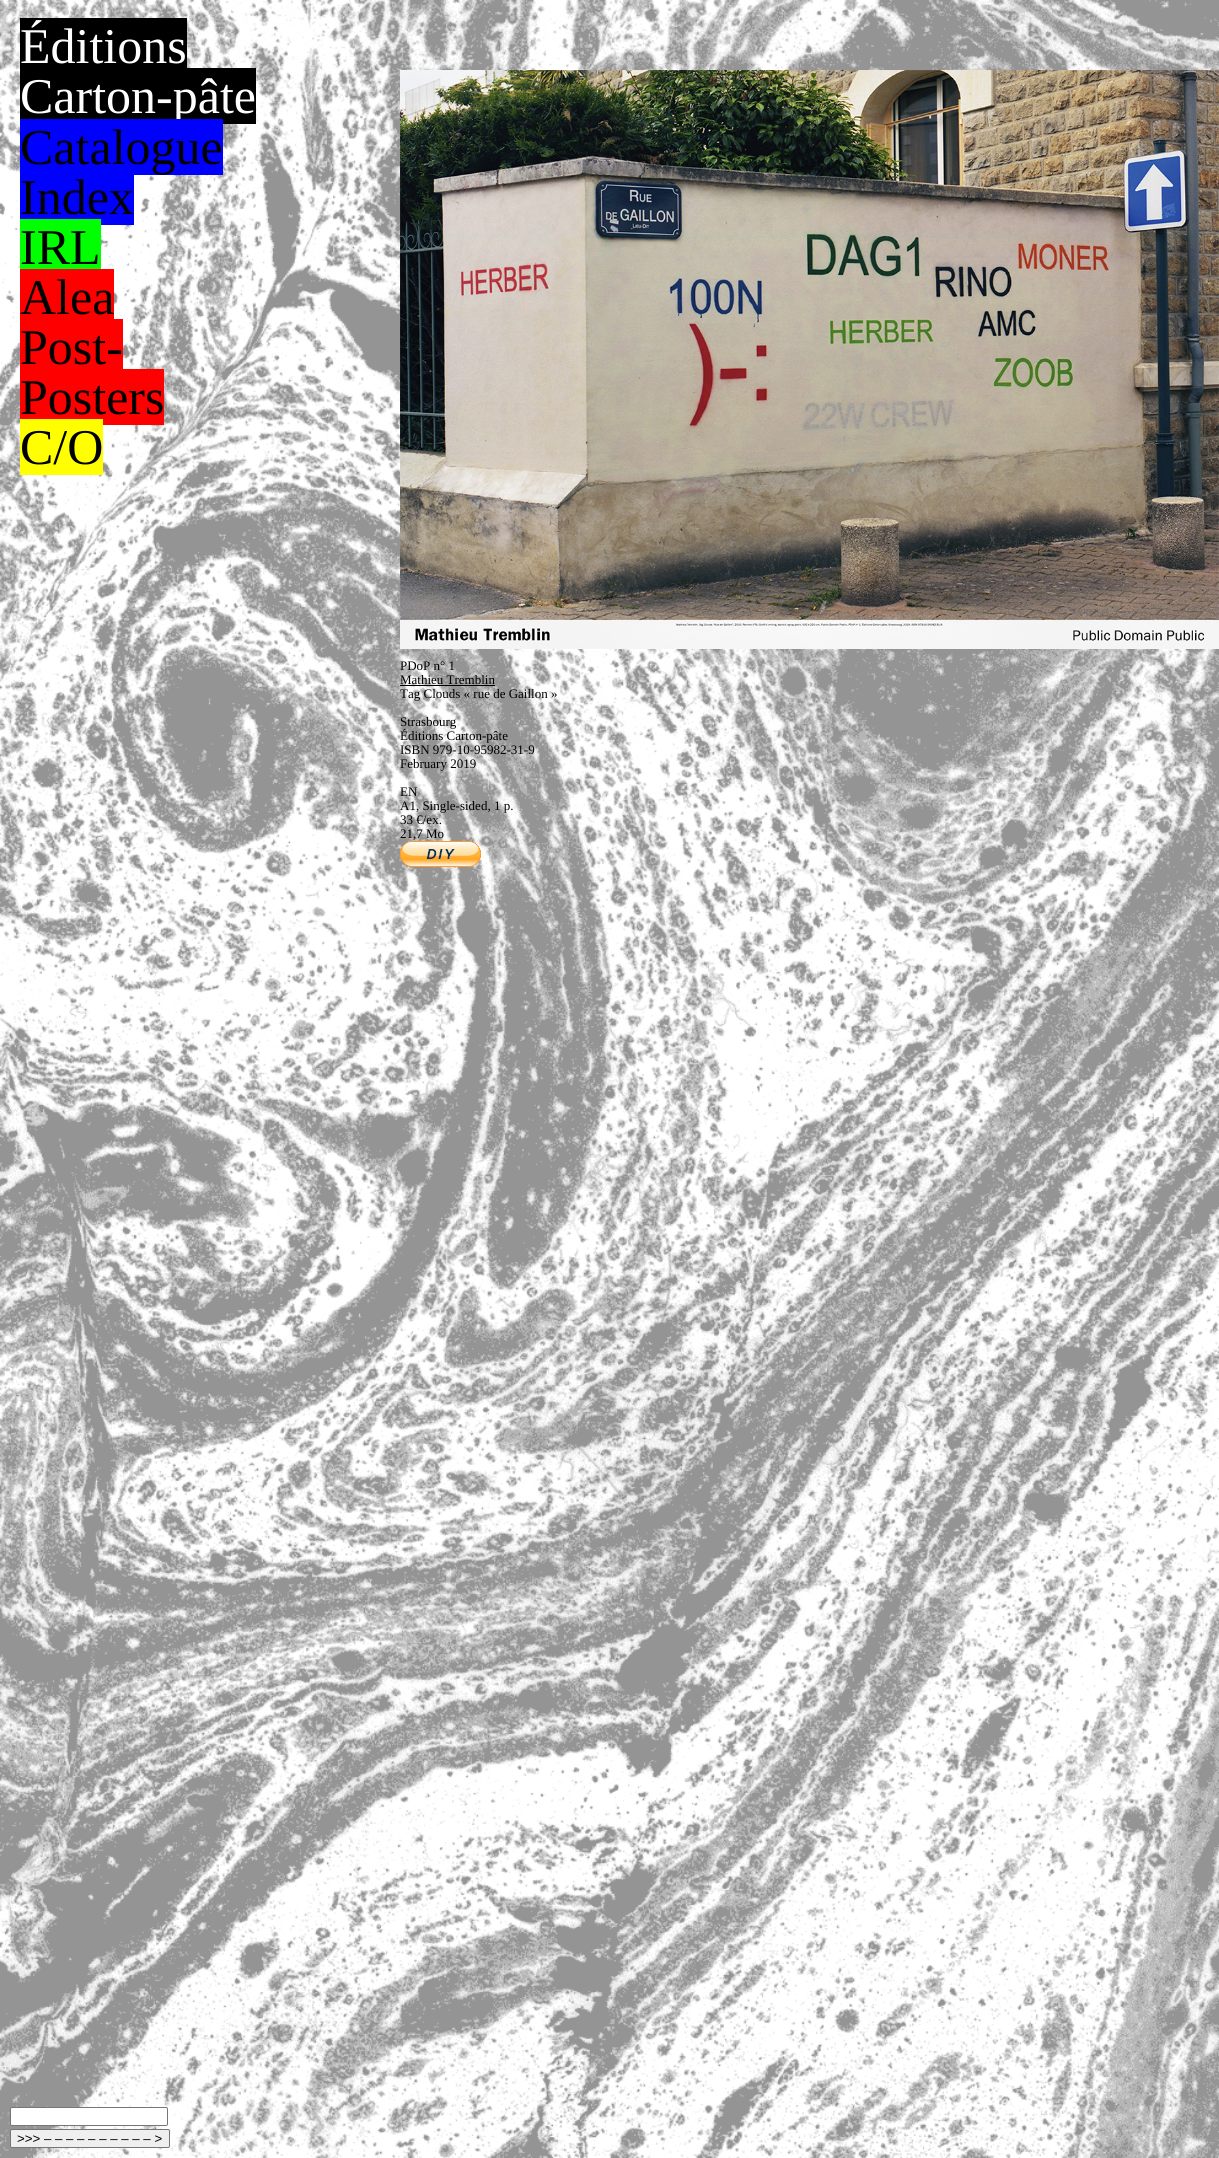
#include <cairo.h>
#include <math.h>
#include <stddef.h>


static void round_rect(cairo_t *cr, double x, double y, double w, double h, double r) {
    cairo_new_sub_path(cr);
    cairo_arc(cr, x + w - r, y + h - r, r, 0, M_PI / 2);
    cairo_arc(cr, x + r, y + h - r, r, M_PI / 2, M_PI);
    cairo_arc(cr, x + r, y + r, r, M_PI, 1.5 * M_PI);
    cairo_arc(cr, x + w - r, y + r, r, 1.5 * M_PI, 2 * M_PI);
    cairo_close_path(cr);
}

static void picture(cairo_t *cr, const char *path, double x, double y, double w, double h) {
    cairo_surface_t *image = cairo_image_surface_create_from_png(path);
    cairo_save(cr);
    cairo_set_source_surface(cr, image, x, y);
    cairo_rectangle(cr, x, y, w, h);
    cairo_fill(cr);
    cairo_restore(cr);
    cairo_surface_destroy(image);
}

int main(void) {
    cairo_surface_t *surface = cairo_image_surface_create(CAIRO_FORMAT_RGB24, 1219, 2158);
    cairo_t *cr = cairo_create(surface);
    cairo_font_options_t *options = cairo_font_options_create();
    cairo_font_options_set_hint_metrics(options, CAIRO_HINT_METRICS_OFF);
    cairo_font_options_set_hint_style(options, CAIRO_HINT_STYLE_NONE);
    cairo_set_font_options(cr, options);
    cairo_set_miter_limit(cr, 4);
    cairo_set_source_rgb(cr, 1, 1, 1);
    cairo_paint(cr);
    picture(cr, "img1.png", 0, 0, 1219, 2158);
    cairo_set_source_rgb(cr, 0, 0, 0);
    cairo_rectangle(cr, 20, 18, 167, 50);
    cairo_fill(cr);
    cairo_select_font_face(cr, "Liberation Serif", CAIRO_FONT_SLANT_NORMAL, CAIRO_FONT_WEIGHT_NORMAL);
    cairo_set_font_size(cr, 50);
    cairo_set_source_rgb(cr, 1, 1, 1);
    cairo_move_to(cr, 20, 63);
    cairo_show_text(cr, "Éditions");
    cairo_set_source_rgb(cr, 0, 0, 0);
    cairo_rectangle(cr, 20, 68, 236, 56);
    cairo_fill(cr);
    cairo_set_source_rgb(cr, 1, 1, 1);
    cairo_move_to(cr, 20, 113);
    cairo_show_text(cr, "Carton-pâte");
    picture(cr, "img2.png", 400, 70, 819, 579);
    cairo_set_font_size(cr, 13);
    cairo_set_source_rgb(cr, 0, 0, 0);
    cairo_move_to(cr, 400, 670);
    cairo_show_text(cr, "PDoP n° 1");
    cairo_move_to(cr, 400, 684);
    cairo_show_text(cr, "Mathieu Tremblin");
    cairo_rectangle(cr, 400, 685, 95, 1);
    cairo_fill(cr);
    cairo_move_to(cr, 400, 698);
    cairo_show_text(cr, "Tag Clouds « rue de Gaillon »");
    cairo_move_to(cr, 400, 726);
    cairo_show_text(cr, "Strasbourg");
    cairo_move_to(cr, 400, 740);
    cairo_show_text(cr, "Éditions Carton-pâte");
    cairo_move_to(cr, 400, 754);
    cairo_show_text(cr, "ISBN 979-10-95982-31-9");
    cairo_move_to(cr, 400, 768);
    cairo_show_text(cr, "February 2019");
    cairo_move_to(cr, 400, 796);
    cairo_show_text(cr, "EN");
    cairo_move_to(cr, 400, 810);
    cairo_show_text(cr, "A1, Single-sided, 1 p.");
    cairo_move_to(cr, 400, 824);
    cairo_show_text(cr, "33 €/ex.");
    cairo_move_to(cr, 400, 838);
    cairo_show_text(cr, "21,7 Mo");
    picture(cr, "img3.png", 400, 841, 81, 26);
    cairo_set_source_rgb(cr, 0, 0, 1);
    cairo_rectangle(cr, 20, 119, 203, 56);
    cairo_fill(cr);
    cairo_set_font_size(cr, 50);
    cairo_set_source_rgb(cr, 0, 0, 0);
    cairo_move_to(cr, 20, 164);
    cairo_show_text(cr, "Catalogue");
    cairo_set_source_rgb(cr, 0, 0, 1);
    cairo_rectangle(cr, 20, 175, 114, 50);
    cairo_fill(cr);
    cairo_set_source_rgb(cr, 0, 0, 0);
    cairo_move_to(cr, 20, 214);
    cairo_show_text(cr, "Index");
    cairo_set_source_rgb(cr, 0, 1, 0);
    cairo_rectangle(cr, 20, 219, 81, 50);
    cairo_fill(cr);
    cairo_set_source_rgb(cr, 0, 0, 0);
    cairo_move_to(cr, 20, 264);
    cairo_show_text(cr, "IRL");
    cairo_set_source_rgb(cr, 1, 0, 0);
    cairo_rectangle(cr, 20, 269, 94, 50);
    cairo_fill(cr);
    cairo_set_source_rgb(cr, 0, 0, 0);
    cairo_move_to(cr, 20, 314);
    cairo_show_text(cr, "Alea");
    cairo_set_source_rgb(cr, 1, 0, 0);
    cairo_rectangle(cr, 20, 319, 103, 50);
    cairo_fill(cr);
    cairo_set_source_rgb(cr, 0, 0, 0);
    cairo_move_to(cr, 20, 364);
    cairo_show_text(cr, "Post-");
    cairo_set_source_rgb(cr, 1, 0, 0);
    cairo_rectangle(cr, 20, 369, 144, 56);
    cairo_fill(cr);
    cairo_set_source_rgb(cr, 0, 0, 0);
    cairo_move_to(cr, 20, 414);
    cairo_show_text(cr, "Posters");
    cairo_set_source_rgb(cr, 1, 1, 0);
    cairo_rectangle(cr, 20, 419, 83, 56);
    cairo_fill(cr);
    cairo_set_source_rgb(cr, 0, 0, 0);
    cairo_move_to(cr, 20, 464);
    cairo_show_text(cr, "C/O");
    cairo_set_source_rgb(cr, 1, 1, 1);
    round_rect(cr, 10.5, 2107.5, 157, 18, 1.5);
    cairo_fill_preserve(cr);
    cairo_set_source_rgb(cr, 0.463, 0.463, 0.463);
    cairo_set_line_width(cr, 1);
    cairo_stroke(cr);
    cairo_set_source_rgb(cr, 0.937, 0.937, 0.937);
    round_rect(cr, 10.5, 2129.5, 159, 18, 1.5);
    cairo_fill_preserve(cr);
    cairo_set_source_rgb(cr, 0.463, 0.463, 0.463);
    cairo_stroke(cr);
    cairo_select_font_face(cr, "Liberation Sans", CAIRO_FONT_SLANT_NORMAL, CAIRO_FONT_WEIGHT_NORMAL);
    cairo_set_font_size(cr, 13.25);
    cairo_set_source_rgb(cr, 0, 0, 0);
    cairo_move_to(cr, 17, 2143);
    cairo_show_text(cr, ">>> – – – – – – – – – – >");
    cairo_surface_write_to_png(surface, "page.png");
    cairo_font_options_destroy(options);
    cairo_destroy(cr);
    cairo_surface_destroy(surface);
    return 0;
}
